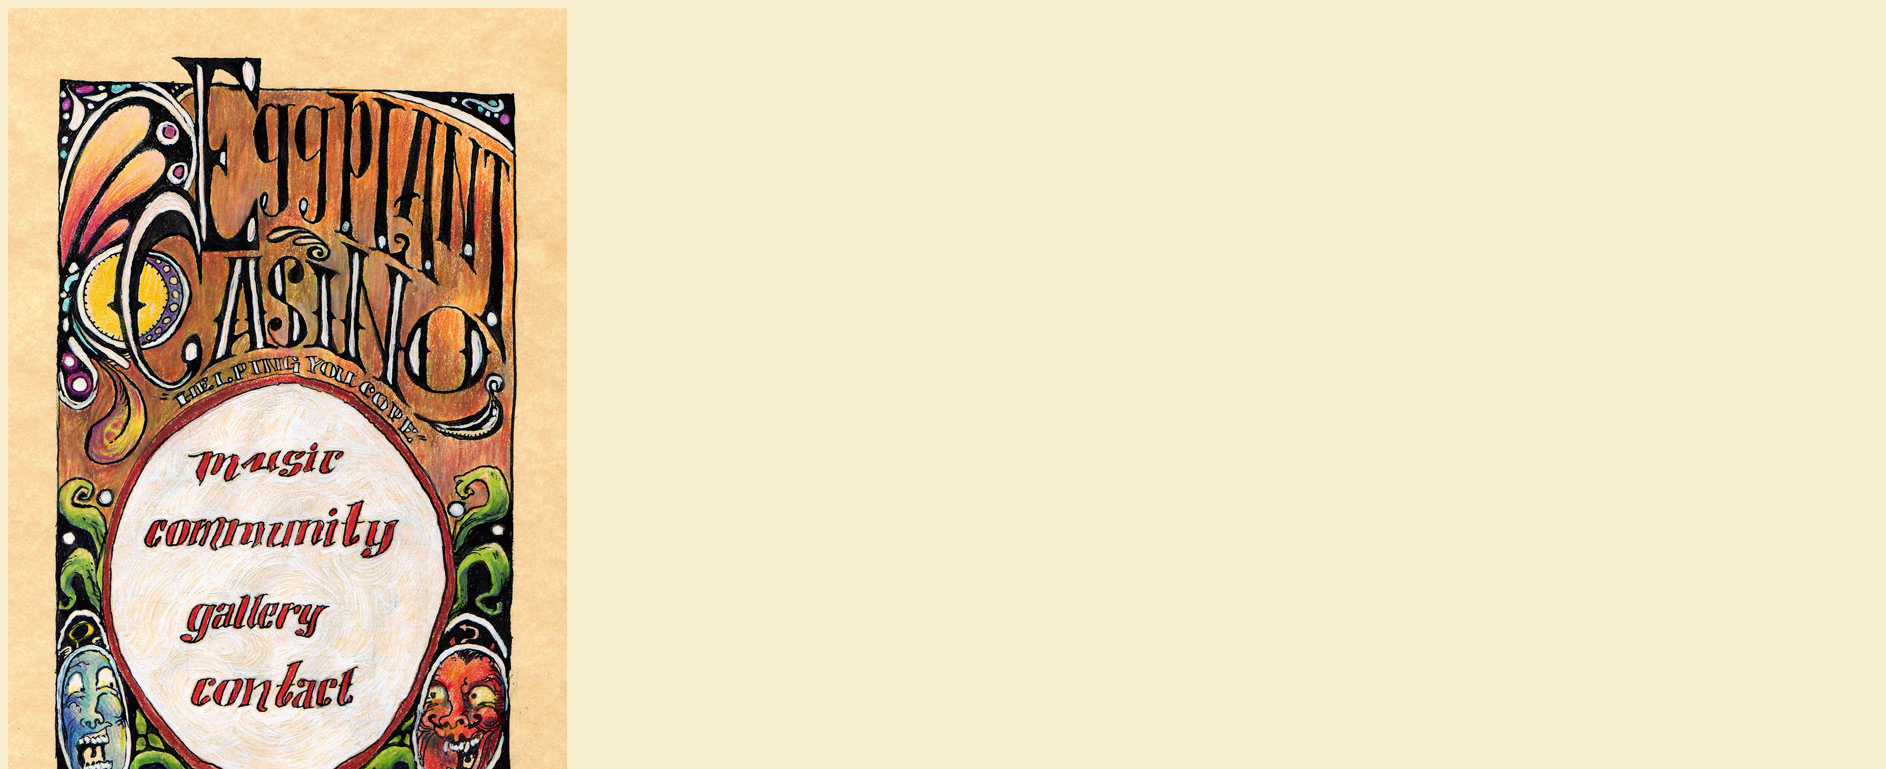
#include <cairo.h>
#include <math.h>
#include <stddef.h>


static void picture(cairo_t *cr, const char *path, double x, double y, double w, double h) {
    cairo_surface_t *image = cairo_image_surface_create_from_png(path);
    cairo_save(cr);
    cairo_set_source_surface(cr, image, x, y);
    cairo_rectangle(cr, x, y, w, h);
    cairo_fill(cr);
    cairo_restore(cr);
    cairo_surface_destroy(image);
}

int main(void) {
    cairo_surface_t *surface = cairo_image_surface_create(CAIRO_FORMAT_RGB24, 1886, 769);
    cairo_t *cr = cairo_create(surface);
    cairo_font_options_t *options = cairo_font_options_create();
    cairo_font_options_set_hint_metrics(options, CAIRO_HINT_METRICS_OFF);
    cairo_font_options_set_hint_style(options, CAIRO_HINT_STYLE_NONE);
    cairo_set_font_options(cr, options);
    cairo_set_miter_limit(cr, 4);
    cairo_set_source_rgb(cr, 0.961, 0.933, 0.808);
    cairo_paint(cr);
    picture(cr, "img1.png", 8, 8, 126, 640);
    picture(cr, "img2.png", 134, 8, 433, 430);
    picture(cr, "img3.png", 134, 438, 280, 53);
    picture(cr, "img4.png", 414, 438, 153, 1);
    picture(cr, "img5.png", 134, 491, 280, 72);
    picture(cr, "img6.png", 414, 439, 153, 209);
    picture(cr, "img7.png", 134, 563, 280, 85);
    picture(cr, "img8.png", 8, 648, 126, 121);
    picture(cr, "img9.png", 134, 648, 280, 74);
    picture(cr, "img10.png", 414, 648, 153, 121);
    picture(cr, "img11.png", 134, 722, 280, 47);
    cairo_surface_write_to_png(surface, "page.png");
    cairo_font_options_destroy(options);
    cairo_destroy(cr);
    cairo_surface_destroy(surface);
    return 0;
}
